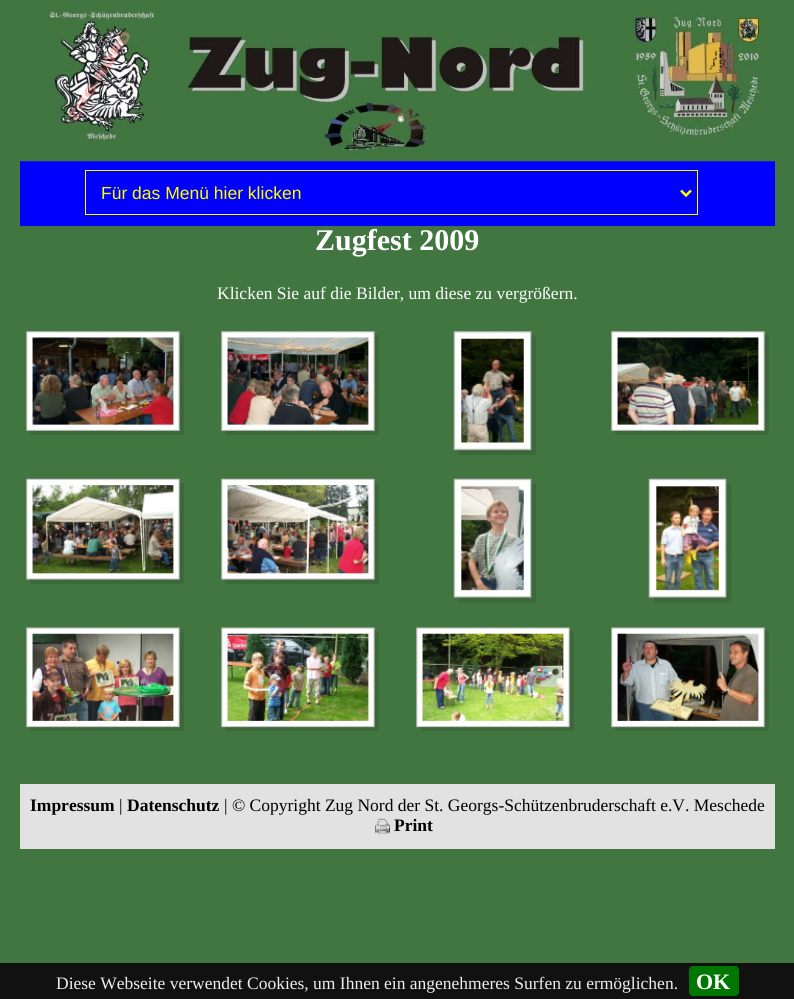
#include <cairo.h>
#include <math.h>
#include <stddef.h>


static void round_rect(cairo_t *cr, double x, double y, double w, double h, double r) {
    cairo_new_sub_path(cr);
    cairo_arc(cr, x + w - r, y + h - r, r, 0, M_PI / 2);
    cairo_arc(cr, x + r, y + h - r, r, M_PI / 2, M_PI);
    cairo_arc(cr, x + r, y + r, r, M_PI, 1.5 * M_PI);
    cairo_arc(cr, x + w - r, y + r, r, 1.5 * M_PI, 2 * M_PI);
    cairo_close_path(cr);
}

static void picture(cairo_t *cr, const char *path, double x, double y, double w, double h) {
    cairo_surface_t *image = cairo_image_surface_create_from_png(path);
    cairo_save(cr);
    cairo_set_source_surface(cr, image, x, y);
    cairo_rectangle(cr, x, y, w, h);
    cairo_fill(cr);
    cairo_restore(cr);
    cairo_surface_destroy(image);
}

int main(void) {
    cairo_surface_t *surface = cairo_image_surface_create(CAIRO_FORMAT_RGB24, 794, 999);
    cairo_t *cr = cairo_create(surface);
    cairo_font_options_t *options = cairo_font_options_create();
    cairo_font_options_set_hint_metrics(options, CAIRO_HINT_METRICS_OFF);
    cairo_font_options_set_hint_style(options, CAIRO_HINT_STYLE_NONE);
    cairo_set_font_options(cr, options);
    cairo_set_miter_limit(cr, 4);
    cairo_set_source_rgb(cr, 0.255, 0.463, 0.255);
    cairo_paint(cr);
    cairo_set_source_rgb(cr, 0, 0, 1);
    cairo_rectangle(cr, 20, 161, 755, 65);
    cairo_fill(cr);
    picture(cr, "img1.png", 20, 11, 755, 151);
    cairo_rectangle(cr, 85.5, 170.5, 612, 44);
    cairo_set_source_rgb(cr, 1, 1, 0);
    cairo_set_line_width(cr, 1);
    cairo_stroke(cr);
    cairo_new_path(cr);
    cairo_move_to(cr, 681, 190.5);
    cairo_line_to(cr, 686, 195.5);
    cairo_line_to(cr, 691, 190.5);
    cairo_set_line_width(cr, 2.5);
    cairo_stroke(cr);
    cairo_select_font_face(cr, "Liberation Sans", CAIRO_FONT_SLANT_NORMAL, CAIRO_FONT_WEIGHT_NORMAL);
    cairo_set_font_size(cr, 17.5);
    cairo_move_to(cr, 101, 199);
    cairo_show_text(cr, "Für das Menü hier klicken");
    cairo_select_font_face(cr, "Liberation Serif", CAIRO_FONT_SLANT_NORMAL, CAIRO_FONT_WEIGHT_BOLD);
    cairo_set_font_size(cr, 30);
    cairo_set_source_rgb(cr, 1, 1, 1);
    cairo_move_to(cr, 315, 250);
    cairo_show_text(cr, "Zugfest 2009");
    cairo_select_font_face(cr, "Liberation Serif", CAIRO_FONT_SLANT_NORMAL, CAIRO_FONT_WEIGHT_NORMAL);
    cairo_set_font_size(cr, 17.5);
    cairo_move_to(cr, 217, 299);
    cairo_show_text(cr, "Klicken Sie auf die Bilder, um diese zu vergrößern.");
    picture(cr, "img2.png", 26, 331, 158, 104);
    picture(cr, "img3.png", 221, 331, 158, 104);
    picture(cr, "img4.png", 453, 331, 83, 124);
    picture(cr, "img5.png", 611, 331, 158, 104);
    picture(cr, "img6.png", 26, 478, 158, 106);
    picture(cr, "img7.png", 221, 478, 158, 106);
    picture(cr, "img8.png", 453, 478, 83, 125);
    picture(cr, "img9.png", 648, 478, 83, 125);
    picture(cr, "img10.png", 26, 627, 158, 104);
    picture(cr, "img11.png", 221, 627, 158, 104);
    picture(cr, "img12.png", 416, 627, 158, 104);
    picture(cr, "img13.png", 611, 627, 158, 104);
    cairo_set_source_rgb(cr, 0.886, 0.886, 0.886);
    cairo_rectangle(cr, 20, 784, 755, 65);
    cairo_fill(cr);
    cairo_select_font_face(cr, "Liberation Serif", CAIRO_FONT_SLANT_NORMAL, CAIRO_FONT_WEIGHT_BOLD);
    cairo_set_source_rgb(cr, 0, 0, 0);
    cairo_move_to(cr, 30, 811);
    cairo_show_text(cr, "Impressum");
    cairo_select_font_face(cr, "Liberation Serif", CAIRO_FONT_SLANT_NORMAL, CAIRO_FONT_WEIGHT_NORMAL);
    cairo_move_to(cr, 119, 811);
    cairo_show_text(cr, "|");
    cairo_select_font_face(cr, "Liberation Serif", CAIRO_FONT_SLANT_NORMAL, CAIRO_FONT_WEIGHT_BOLD);
    cairo_move_to(cr, 127, 811);
    cairo_show_text(cr, "Datenschutz");
    cairo_select_font_face(cr, "Liberation Serif", CAIRO_FONT_SLANT_NORMAL, CAIRO_FONT_WEIGHT_NORMAL);
    cairo_move_to(cr, 224, 811);
    cairo_show_text(cr, "| © Copyright Zug Nord der St. Georgs-Schützenbruderschaft e.V. Meschede");
    picture(cr, "img14.png", 375, 818, 15, 16);
    cairo_select_font_face(cr, "Liberation Serif", CAIRO_FONT_SLANT_NORMAL, CAIRO_FONT_WEIGHT_BOLD);
    cairo_move_to(cr, 394, 831);
    cairo_show_text(cr, "Print");
    cairo_set_source_rgb(cr, 0.067, 0.067, 0.067);
    cairo_rectangle(cr, 0, 963, 794, 36);
    cairo_fill(cr);
    cairo_select_font_face(cr, "Liberation Serif", CAIRO_FONT_SLANT_NORMAL, CAIRO_FONT_WEIGHT_NORMAL);
    cairo_set_source_rgb(cr, 0.933, 0.933, 0.933);
    cairo_move_to(cr, 56, 989);
    cairo_show_text(cr, "Diese Webseite verwendet Cookies, um Ihnen ein angenehmeres Surfen zu ermöglichen.");
    cairo_set_source_rgb(cr, 0, 0.467, 0);
    round_rect(cr, 689, 966, 50, 30, 4);
    cairo_fill(cr);
    cairo_select_font_face(cr, "Liberation Serif", CAIRO_FONT_SLANT_NORMAL, CAIRO_FONT_WEIGHT_BOLD);
    cairo_set_font_size(cr, 22);
    cairo_set_source_rgb(cr, 1, 1, 1);
    cairo_move_to(cr, 696, 989);
    cairo_show_text(cr, "OK");
    cairo_surface_write_to_png(surface, "page.png");
    cairo_font_options_destroy(options);
    cairo_destroy(cr);
    cairo_surface_destroy(surface);
    return 0;
}
